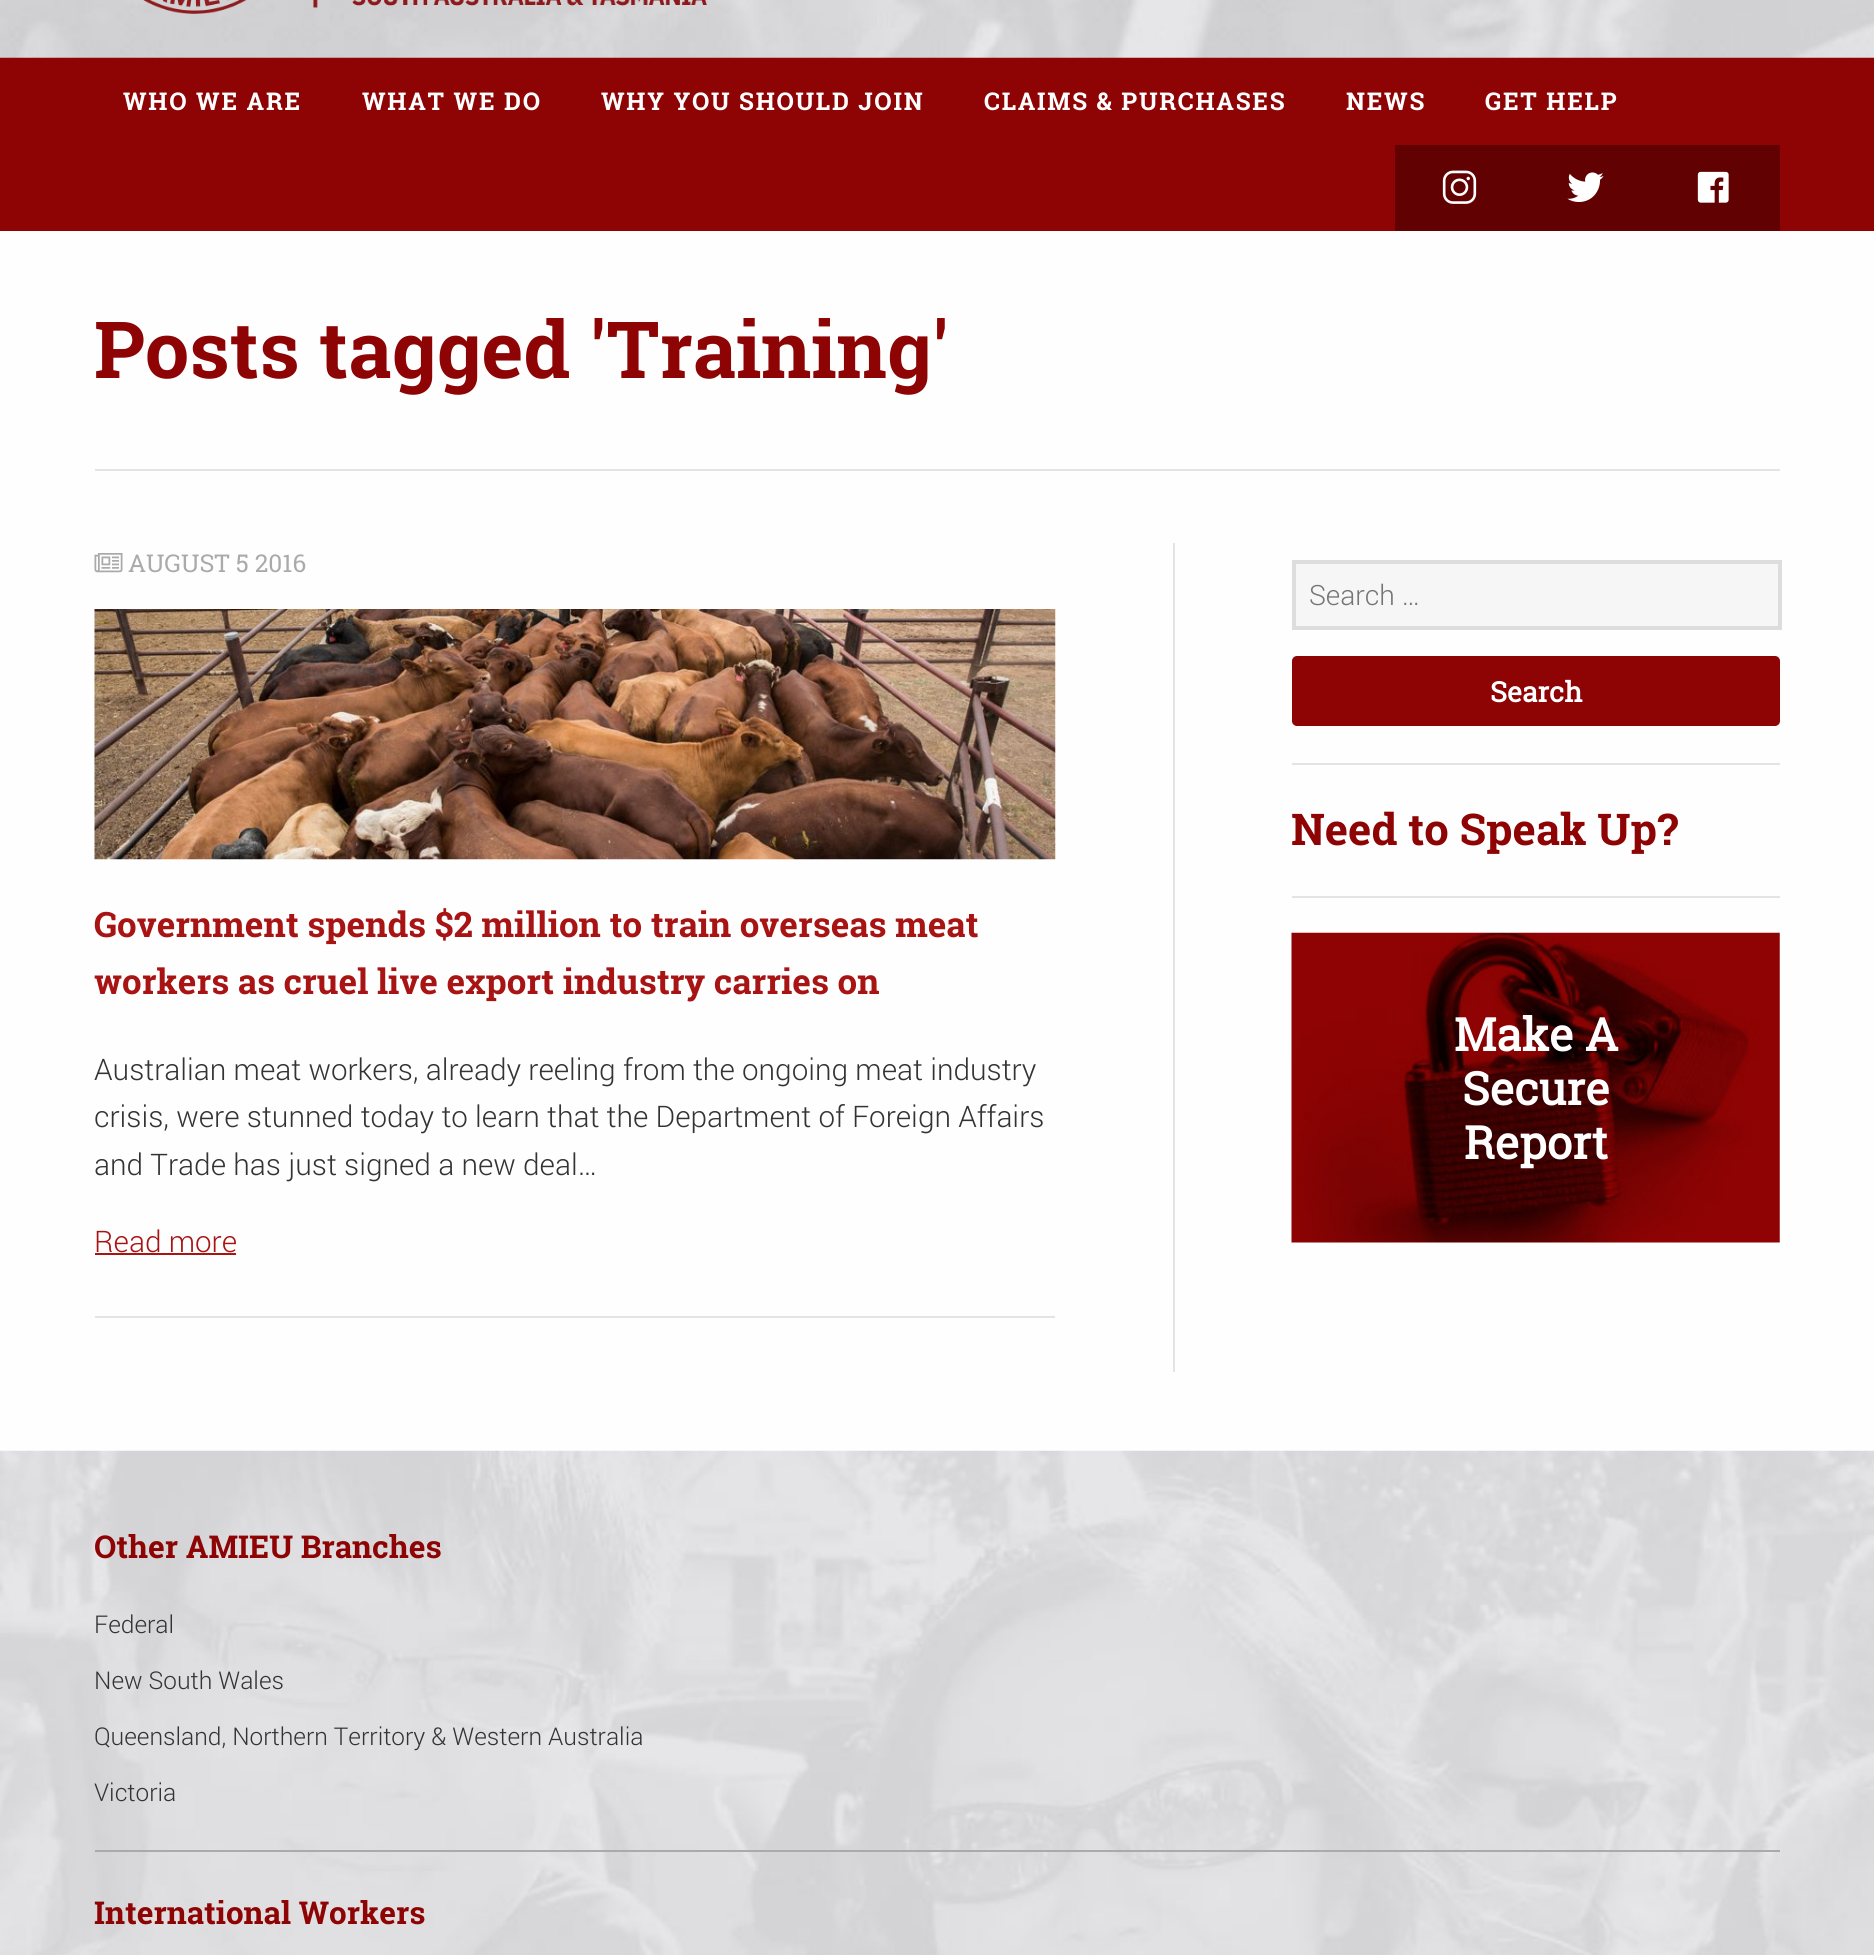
#include <cairo.h>
#include <math.h>
#include <stddef.h>


static void spaced_text(cairo_t *cr, double x, double y, const char *s, double letter, double word) {
    cairo_move_to(cr, x, y);
    while (*s) {
        char ch[5] = {0};
        int n = 0;
        do ch[n++] = *s++; while ((*s & 0xC0) == 0x80);
        cairo_show_text(cr, ch);
        cairo_rel_move_to(cr, letter + word * (*ch == ' '), 0);
    }
}

static void round_rect(cairo_t *cr, double x, double y, double w, double h, double r) {
    cairo_new_sub_path(cr);
    cairo_arc(cr, x + w - r, y + h - r, r, 0, M_PI / 2);
    cairo_arc(cr, x + r, y + h - r, r, M_PI / 2, M_PI);
    cairo_arc(cr, x + r, y + r, r, M_PI, 1.5 * M_PI);
    cairo_arc(cr, x + w - r, y + r, r, 1.5 * M_PI, 2 * M_PI);
    cairo_close_path(cr);
}

static void picture(cairo_t *cr, const char *path, double x, double y, double w, double h) {
    cairo_surface_t *image = cairo_image_surface_create_from_png(path);
    cairo_save(cr);
    cairo_set_source_surface(cr, image, x, y);
    cairo_rectangle(cr, x, y, w, h);
    cairo_fill(cr);
    cairo_restore(cr);
    cairo_surface_destroy(image);
}

int main(void) {
    cairo_surface_t *surface = cairo_image_surface_create(CAIRO_FORMAT_RGB24, 1874, 1955);
    cairo_t *cr = cairo_create(surface);
    cairo_font_options_t *options = cairo_font_options_create();
    cairo_font_options_set_hint_metrics(options, CAIRO_HINT_METRICS_OFF);
    cairo_font_options_set_hint_style(options, CAIRO_HINT_STYLE_NONE);
    cairo_set_font_options(cr, options);
    cairo_set_miter_limit(cr, 4);
    cairo_set_source_rgb(cr, 0.557, 0.012, 0.012);
    cairo_paint(cr);
    picture(cr, "img1.png", 0, 0, 1874, 58);
    picture(cr, "img2.png", 143, 0, 564, 14);
    cairo_select_font_face(cr, "Roboto Slab", CAIRO_FONT_SLANT_NORMAL, CAIRO_FONT_WEIGHT_BOLD);
    cairo_set_font_size(cr, 24.5);
    cairo_set_source_rgb(cr, 1, 1, 1);
    spaced_text(cr, 123, 110, "WHO WE ARE", 1.75, 0);
    spaced_text(cr, 362, 110, "WHAT WE DO", 1.75, 0);
    spaced_text(cr, 601, 110, "WHY YOU SHOULD JOIN", 1.75, 0);
    spaced_text(cr, 984, 110, "CLAIMS & PURCHASES", 1.75, 0);
    spaced_text(cr, 1346, 110, "NEWS", 1.75, 0);
    spaced_text(cr, 1485, 110, "GET HELP", 1.75, 0);
    cairo_set_source_rgb(cr, 0.38, 0.004, 0.004);
    cairo_rectangle(cr, 1395, 145, 385, 86);
    cairo_fill(cr);
    picture(cr, "img3.png", 1442, 170, 35, 34);
    picture(cr, "img4.png", 1567, 172, 37, 30);
    picture(cr, "img5.png", 1697, 171, 32, 32);
    cairo_set_source_rgb(cr, 0.996, 0.996, 0.996);
    cairo_rectangle(cr, 0, 231, 1874, 1220);
    cairo_fill(cr);
    cairo_set_source_rgb(cr, 0.894, 0.894, 0.902);
    cairo_rectangle(cr, 95, 469, 1685, 2);
    cairo_fill(cr);
    cairo_set_font_size(cr, 78.75);
    cairo_set_source_rgb(cr, 0.557, 0.012, 0.012);
    cairo_move_to(cr, 94, 378);
    cairo_show_text(cr, "Posts tagged 'Training'");
    cairo_set_source_rgb(cr, 0.894, 0.894, 0.902);
    cairo_rectangle(cr, 1173, 543, 2, 829);
    cairo_fill(cr);
    picture(cr, "img6.png", 94, 553, 29, 20);
    cairo_select_font_face(cr, "Roboto Slab", CAIRO_FONT_SLANT_NORMAL, CAIRO_FONT_WEIGHT_NORMAL);
    cairo_set_font_size(cr, 24.5);
    cairo_set_source_rgb(cr, 0.667, 0.667, 0.667);
    cairo_move_to(cr, 128, 572);
    cairo_show_text(cr, "AUGUST 5 2016");
    picture(cr, "img7.png", 94, 609, 962, 251);
    cairo_select_font_face(cr, "Roboto Slab", CAIRO_FONT_SLANT_NORMAL, CAIRO_FONT_WEIGHT_BOLD);
    cairo_set_font_size(cr, 35);
    cairo_set_source_rgb(cr, 0.659, 0.075, 0.075);
    cairo_move_to(cr, 94, 937);
    cairo_show_text(cr, "Government spends $2 million to train overseas meat");
    cairo_move_to(cr, 94, 994);
    cairo_show_text(cr, "workers as cruel live export industry carries on");
    cairo_select_font_face(cr, "Roboto Light", CAIRO_FONT_SLANT_NORMAL, CAIRO_FONT_WEIGHT_NORMAL);
    cairo_set_font_size(cr, 29.75);
    cairo_set_source_rgb(cr, 0.2, 0.2, 0.2);
    cairo_move_to(cr, 94, 1080);
    cairo_show_text(cr, "Australian meat workers, already reeling from the ongoing meat industry");
    cairo_move_to(cr, 94, 1127);
    cairo_show_text(cr, "crisis, were stunned today to learn that the Department of Foreign Affairs");
    cairo_move_to(cr, 94, 1175);
    cairo_show_text(cr, "and Trade has just signed a new deal…");
    cairo_set_source_rgb(cr, 0.659, 0.075, 0.075);
    cairo_move_to(cr, 94, 1252);
    cairo_show_text(cr, "Read more");
    cairo_rectangle(cr, 95, 1253, 141, 2);
    cairo_fill(cr);
    cairo_set_source_rgb(cr, 0.894, 0.894, 0.902);
    cairo_rectangle(cr, 95, 1316, 960, 2);
    cairo_fill(cr);
    cairo_set_source_rgb(cr, 0.961, 0.961, 0.961);
    cairo_rectangle(cr, 1294, 562, 486, 66);
    cairo_fill_preserve(cr);
    cairo_set_source_rgb(cr, 0.867, 0.867, 0.867);
    cairo_set_line_width(cr, 4);
    cairo_stroke(cr);
    cairo_set_font_size(cr, 28);
    cairo_set_source_rgb(cr, 0.459, 0.459, 0.459);
    cairo_move_to(cr, 1309, 605);
    cairo_show_text(cr, "Search …");
    cairo_set_source_rgb(cr, 0.557, 0.012, 0.012);
    round_rect(cr, 1292, 656, 488, 70, 5);
    cairo_fill(cr);
    cairo_select_font_face(cr, "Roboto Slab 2", CAIRO_FONT_SLANT_NORMAL, CAIRO_FONT_WEIGHT_BOLD);
    cairo_set_source_rgb(cr, 1, 1, 1);
    cairo_move_to(cr, 1490, 702);
    cairo_show_text(cr, "Search");
    cairo_set_source_rgb(cr, 0.894, 0.894, 0.902);
    cairo_rectangle(cr, 1292, 763, 488, 2);
    cairo_fill(cr);
    cairo_rectangle(cr, 1292, 896, 488, 2);
    cairo_fill(cr);
    cairo_select_font_face(cr, "Roboto Slab", CAIRO_FONT_SLANT_NORMAL, CAIRO_FONT_WEIGHT_BOLD);
    cairo_set_font_size(cr, 43.75);
    cairo_set_source_rgb(cr, 0.557, 0.012, 0.012);
    cairo_move_to(cr, 1291, 845);
    cairo_show_text(cr, "Need to Speak Up?");
    picture(cr, "img8.png", 1291, 932, 489, 311);
    cairo_select_font_face(cr, "Roboto Slab 2", CAIRO_FONT_SLANT_NORMAL, CAIRO_FONT_WEIGHT_BOLD);
    cairo_set_font_size(cr, 45.5);
    cairo_set_source_rgb(cr, 1, 1, 1);
    cairo_move_to(cr, 1454, 1051);
    cairo_show_text(cr, "Make A");
    cairo_move_to(cr, 1462, 1105);
    cairo_show_text(cr, "Secure");
    cairo_move_to(cr, 1464, 1159);
    cairo_show_text(cr, "Report");
    picture(cr, "img9.png", 0, 1450, 1874, 505);
    cairo_set_source_rgb(cr, 0.667, 0.667, 0.667);
    cairo_rectangle(cr, 95, 1850, 1685, 2);
    cairo_fill(cr);
    cairo_select_font_face(cr, "Roboto Slab", CAIRO_FONT_SLANT_NORMAL, CAIRO_FONT_WEIGHT_BOLD);
    cairo_set_font_size(cr, 31.5);
    cairo_set_source_rgb(cr, 0.557, 0.012, 0.012);
    cairo_move_to(cr, 94, 1558);
    cairo_show_text(cr, "Other AMIEU Branches");
    cairo_select_font_face(cr, "Roboto Light", CAIRO_FONT_SLANT_NORMAL, CAIRO_FONT_WEIGHT_NORMAL);
    cairo_set_font_size(cr, 24.5);
    cairo_set_source_rgb(cr, 0.2, 0.2, 0.2);
    cairo_move_to(cr, 94, 1633);
    cairo_show_text(cr, "Federal");
    cairo_move_to(cr, 94, 1689);
    cairo_show_text(cr, "New South Wales");
    cairo_move_to(cr, 94, 1745);
    cairo_show_text(cr, "Queensland, Northern Territory & Western Australia");
    cairo_move_to(cr, 94, 1801);
    cairo_show_text(cr, "Victoria");
    cairo_select_font_face(cr, "Roboto Slab", CAIRO_FONT_SLANT_NORMAL, CAIRO_FONT_WEIGHT_BOLD);
    cairo_set_font_size(cr, 31.5);
    cairo_set_source_rgb(cr, 0.557, 0.012, 0.012);
    cairo_move_to(cr, 94, 1924);
    cairo_show_text(cr, "International Workers");
    cairo_surface_write_to_png(surface, "page.png");
    cairo_font_options_destroy(options);
    cairo_destroy(cr);
    cairo_surface_destroy(surface);
    return 0;
}
